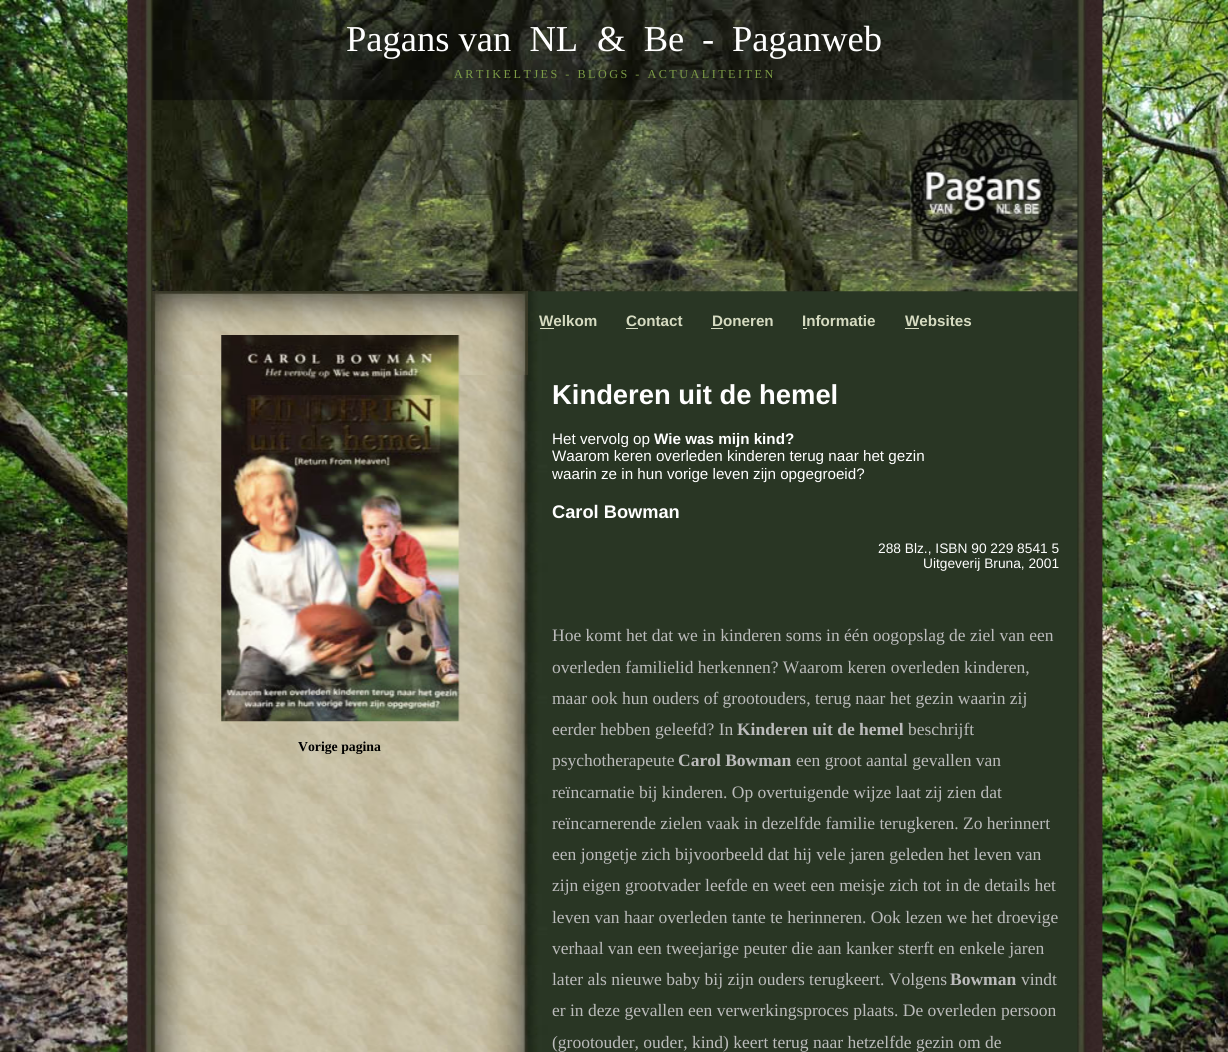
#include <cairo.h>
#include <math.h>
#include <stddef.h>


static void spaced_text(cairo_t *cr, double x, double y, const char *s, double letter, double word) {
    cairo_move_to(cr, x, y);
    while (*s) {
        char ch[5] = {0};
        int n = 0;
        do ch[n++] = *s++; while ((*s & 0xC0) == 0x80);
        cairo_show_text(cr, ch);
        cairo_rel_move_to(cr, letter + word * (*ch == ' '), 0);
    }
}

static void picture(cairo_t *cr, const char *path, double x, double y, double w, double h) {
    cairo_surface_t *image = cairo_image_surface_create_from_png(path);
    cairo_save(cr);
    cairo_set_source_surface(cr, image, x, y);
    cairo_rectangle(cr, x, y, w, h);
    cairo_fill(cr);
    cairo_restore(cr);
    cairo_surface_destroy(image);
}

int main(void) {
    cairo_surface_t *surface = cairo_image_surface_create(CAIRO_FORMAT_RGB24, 1228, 1052);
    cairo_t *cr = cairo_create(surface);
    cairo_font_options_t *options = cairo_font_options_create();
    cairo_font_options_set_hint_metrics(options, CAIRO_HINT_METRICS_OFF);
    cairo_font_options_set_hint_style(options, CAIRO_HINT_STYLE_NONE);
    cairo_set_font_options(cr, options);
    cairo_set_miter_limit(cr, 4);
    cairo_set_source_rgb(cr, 1, 1, 1);
    cairo_paint(cr);
    picture(cr, "img1.png", 0, 0, 1228, 1052);
    picture(cr, "img2.png", 127, 0, 976, 1052);
    picture(cr, "img3.png", 152, 0, 926, 292);
    cairo_select_font_face(cr, "Liberation Serif", CAIRO_FONT_SLANT_NORMAL, CAIRO_FONT_WEIGHT_NORMAL);
    cairo_set_font_size(cr, 36.5);
    cairo_set_source_rgb(cr, 1, 1, 1);
    cairo_move_to(cr, 346, 51);
    cairo_show_text(cr, "Pagans van  NL");
    cairo_move_to(cr, 597, 51);
    cairo_show_text(cr, "&  Be");
    cairo_move_to(cr, 702, 51);
    cairo_show_text(cr, "-");
    cairo_move_to(cr, 732, 51);
    cairo_show_text(cr, "Paganweb");
    cairo_set_font_size(cr, 12.15);
    cairo_set_source_rgb(cr, 0.486, 0.608, 0.275);
    spaced_text(cr, 454, 78, "ARTIKELTJES - BLOGS - ACTUALITEITEN", 2.5, 0);
    picture(cr, "img4.png", 152, 291, 376, 84);
    picture(cr, "img5.png", 221, 335, 239, 387);
    cairo_select_font_face(cr, "Liberation Serif", CAIRO_FONT_SLANT_NORMAL, CAIRO_FONT_WEIGHT_BOLD);
    cairo_set_font_size(cr, 13.75);
    cairo_set_source_rgb(cr, 0, 0, 0);
    cairo_move_to(cr, 298, 751);
    cairo_show_text(cr, "Vorige pagina");
    cairo_select_font_face(cr, "Liberation Sans", CAIRO_FONT_SLANT_NORMAL, CAIRO_FONT_WEIGHT_BOLD);
    cairo_set_font_size(cr, 15.2);
    cairo_set_source_rgb(cr, 0.839, 0.859, 0.757);
    cairo_move_to(cr, 539, 326);
    cairo_show_text(cr, "Welkom");
    cairo_rectangle(cr, 540, 328, 14, 1);
    cairo_fill(cr);
    cairo_move_to(cr, 626, 326);
    cairo_show_text(cr, "Contact");
    cairo_rectangle(cr, 626, 328, 12, 1);
    cairo_fill(cr);
    cairo_move_to(cr, 712, 326);
    cairo_show_text(cr, "Doneren");
    cairo_rectangle(cr, 711, 328, 12, 1);
    cairo_fill(cr);
    cairo_move_to(cr, 802, 326);
    cairo_show_text(cr, "Informatie");
    cairo_rectangle(cr, 803, 328, 4, 1);
    cairo_fill(cr);
    cairo_move_to(cr, 905, 326);
    cairo_show_text(cr, "Websites");
    cairo_rectangle(cr, 905, 328, 14, 1);
    cairo_fill(cr);
    cairo_set_font_size(cr, 27.4);
    cairo_set_source_rgb(cr, 1, 1, 1);
    cairo_move_to(cr, 552, 404);
    cairo_show_text(cr, "Kinderen uit de hemel");
    cairo_select_font_face(cr, "Liberation Sans", CAIRO_FONT_SLANT_NORMAL, CAIRO_FONT_WEIGHT_NORMAL);
    cairo_set_font_size(cr, 15.2);
    cairo_move_to(cr, 552, 444);
    cairo_show_text(cr, "Het vervolg op");
    cairo_select_font_face(cr, "Liberation Sans", CAIRO_FONT_SLANT_NORMAL, CAIRO_FONT_WEIGHT_BOLD);
    cairo_move_to(cr, 654, 444);
    cairo_show_text(cr, "Wie was mijn kind?");
    cairo_select_font_face(cr, "Liberation Sans", CAIRO_FONT_SLANT_NORMAL, CAIRO_FONT_WEIGHT_NORMAL);
    cairo_move_to(cr, 552, 461);
    cairo_show_text(cr, "Waarom keren overleden kinderen terug naar het gezin");
    cairo_move_to(cr, 552, 479);
    cairo_show_text(cr, "waarin ze in hun vorige leven zijn opgegroeid?");
    cairo_select_font_face(cr, "Liberation Sans", CAIRO_FONT_SLANT_NORMAL, CAIRO_FONT_WEIGHT_BOLD);
    cairo_set_font_size(cr, 18.25);
    cairo_move_to(cr, 552, 518);
    cairo_show_text(cr, "Carol Bowman");
    cairo_select_font_face(cr, "Liberation Sans", CAIRO_FONT_SLANT_NORMAL, CAIRO_FONT_WEIGHT_NORMAL);
    cairo_set_font_size(cr, 13.75);
    cairo_move_to(cr, 878, 553);
    cairo_show_text(cr, "288 Blz., ISBN 90 229 8541 5");
    cairo_move_to(cr, 923, 568);
    cairo_show_text(cr, "Uitgeverij Bruna, 2001");
    cairo_select_font_face(cr, "Liberation Serif", CAIRO_FONT_SLANT_NORMAL, CAIRO_FONT_WEIGHT_NORMAL);
    cairo_set_font_size(cr, 17.5);
    cairo_set_source_rgb(cr, 0.733, 0.733, 0.733);
    cairo_move_to(cr, 552, 641);
    cairo_show_text(cr, "Hoe komt het dat we in kinderen soms in één oogopslag de ziel van een");
    cairo_move_to(cr, 552, 673);
    cairo_show_text(cr, "overleden familielid herkennen? Waarom keren overleden kinderen,");
    cairo_move_to(cr, 552, 704);
    cairo_show_text(cr, "maar ook hun ouders of grootouders, terug naar het gezin waarin zij");
    cairo_move_to(cr, 552, 735);
    cairo_show_text(cr, "eerder hebben geleefd? In");
    cairo_select_font_face(cr, "Liberation Serif", CAIRO_FONT_SLANT_NORMAL, CAIRO_FONT_WEIGHT_BOLD);
    cairo_move_to(cr, 737, 735);
    cairo_show_text(cr, "Kinderen uit de hemel");
    cairo_select_font_face(cr, "Liberation Serif", CAIRO_FONT_SLANT_NORMAL, CAIRO_FONT_WEIGHT_NORMAL);
    cairo_move_to(cr, 908, 735);
    cairo_show_text(cr, "beschrijft");
    cairo_move_to(cr, 552, 766);
    cairo_show_text(cr, "psychotherapeute");
    cairo_select_font_face(cr, "Liberation Serif", CAIRO_FONT_SLANT_NORMAL, CAIRO_FONT_WEIGHT_BOLD);
    cairo_move_to(cr, 678, 766);
    cairo_show_text(cr, "Carol Bowman");
    cairo_select_font_face(cr, "Liberation Serif", CAIRO_FONT_SLANT_NORMAL, CAIRO_FONT_WEIGHT_NORMAL);
    cairo_move_to(cr, 796, 766);
    cairo_show_text(cr, "een groot aantal gevallen van");
    cairo_move_to(cr, 552, 798);
    cairo_show_text(cr, "reïncarnatie bij kinderen. Op overtuigende wijze laat zij zien dat");
    cairo_move_to(cr, 552, 829);
    cairo_show_text(cr, "reïncarnerende zielen vaak in dezelfde familie terugkeren. Zo herinnert");
    cairo_move_to(cr, 552, 860);
    cairo_show_text(cr, "een jongetje zich bijvoorbeeld dat hij vele jaren geleden het leven van");
    cairo_move_to(cr, 552, 891);
    cairo_show_text(cr, "zijn eigen grootvader leefde en weet een meisje zich tot in de details het");
    cairo_move_to(cr, 552, 923);
    cairo_show_text(cr, "leven van haar overleden tante te herinneren. Ook lezen we het droevige");
    cairo_move_to(cr, 552, 954);
    cairo_show_text(cr, "verhaal van een tweejarige peuter die aan kanker sterft en enkele jaren");
    cairo_move_to(cr, 552, 985);
    cairo_show_text(cr, "later als nieuwe baby bij zijn ouders terugkeert. Volgens");
    cairo_select_font_face(cr, "Liberation Serif", CAIRO_FONT_SLANT_NORMAL, CAIRO_FONT_WEIGHT_BOLD);
    cairo_move_to(cr, 950, 985);
    cairo_show_text(cr, "Bowman");
    cairo_select_font_face(cr, "Liberation Serif", CAIRO_FONT_SLANT_NORMAL, CAIRO_FONT_WEIGHT_NORMAL);
    cairo_move_to(cr, 1021, 985);
    cairo_show_text(cr, "vindt");
    cairo_move_to(cr, 552, 1016);
    cairo_show_text(cr, "er in deze gevallen een verwerkingsproces plaats. De overleden persoon");
    cairo_move_to(cr, 552, 1048);
    cairo_show_text(cr, "(grootouder, ouder, kind) keert terug naar hetzelfde gezin om de");
    cairo_surface_write_to_png(surface, "page.png");
    cairo_font_options_destroy(options);
    cairo_destroy(cr);
    cairo_surface_destroy(surface);
    return 0;
}
